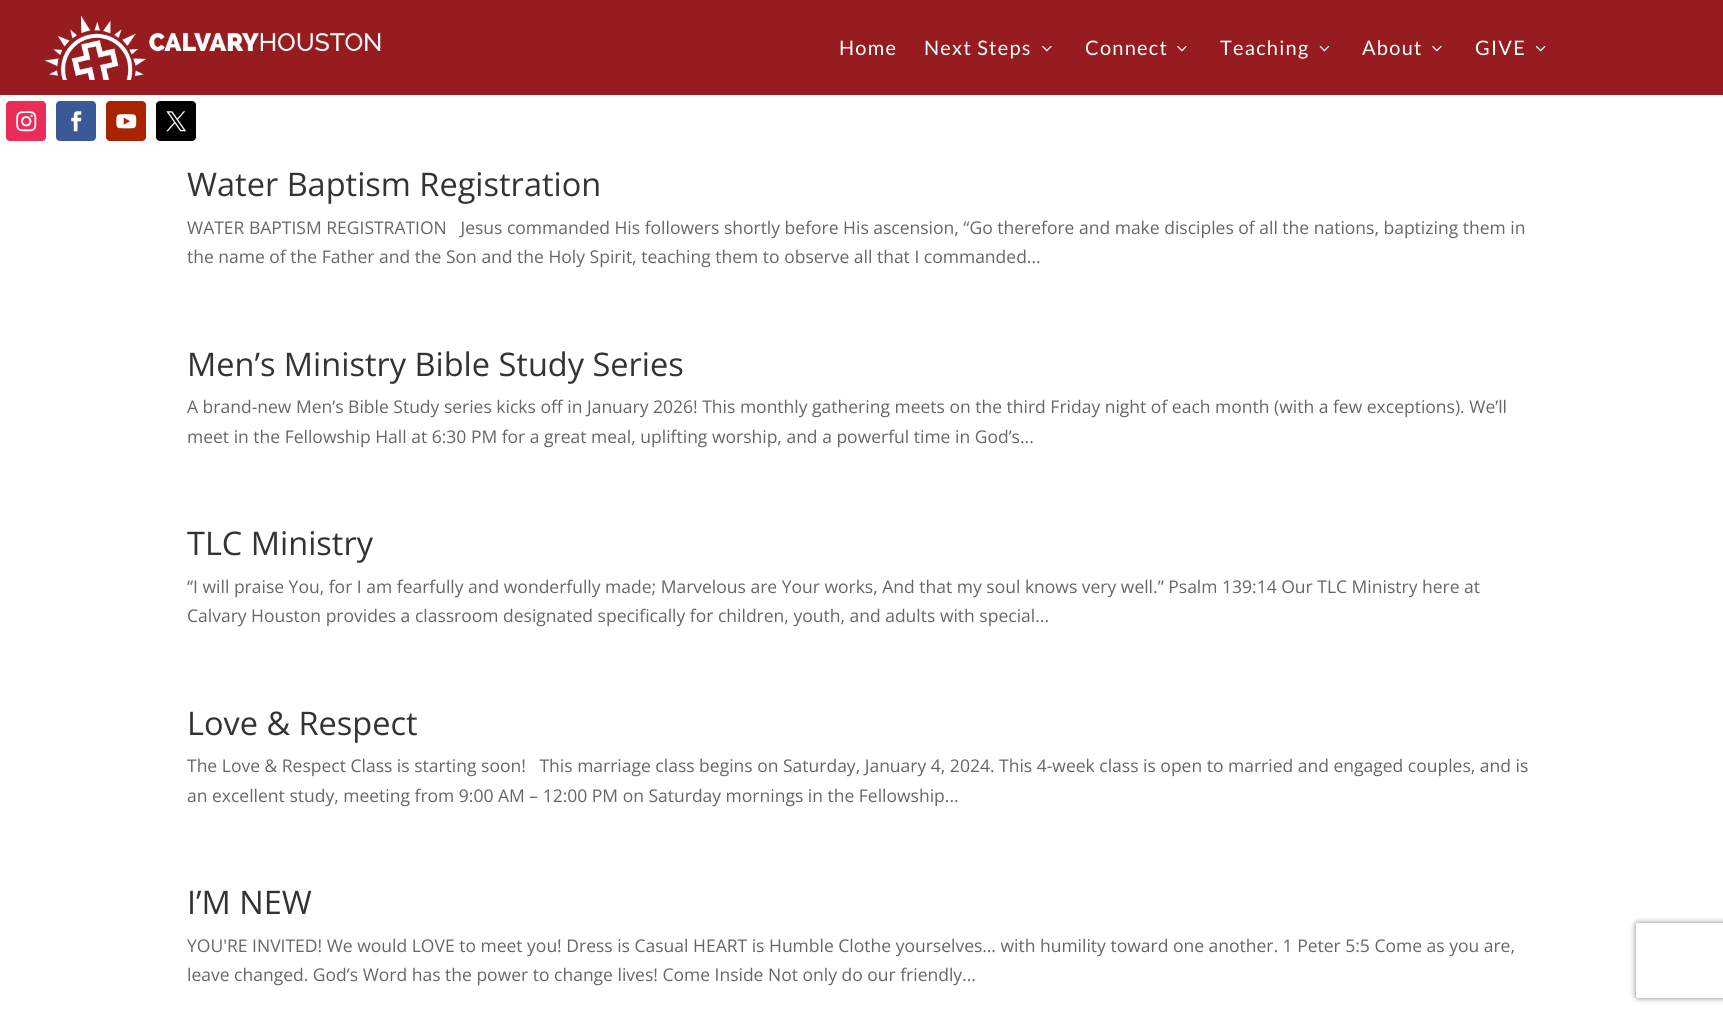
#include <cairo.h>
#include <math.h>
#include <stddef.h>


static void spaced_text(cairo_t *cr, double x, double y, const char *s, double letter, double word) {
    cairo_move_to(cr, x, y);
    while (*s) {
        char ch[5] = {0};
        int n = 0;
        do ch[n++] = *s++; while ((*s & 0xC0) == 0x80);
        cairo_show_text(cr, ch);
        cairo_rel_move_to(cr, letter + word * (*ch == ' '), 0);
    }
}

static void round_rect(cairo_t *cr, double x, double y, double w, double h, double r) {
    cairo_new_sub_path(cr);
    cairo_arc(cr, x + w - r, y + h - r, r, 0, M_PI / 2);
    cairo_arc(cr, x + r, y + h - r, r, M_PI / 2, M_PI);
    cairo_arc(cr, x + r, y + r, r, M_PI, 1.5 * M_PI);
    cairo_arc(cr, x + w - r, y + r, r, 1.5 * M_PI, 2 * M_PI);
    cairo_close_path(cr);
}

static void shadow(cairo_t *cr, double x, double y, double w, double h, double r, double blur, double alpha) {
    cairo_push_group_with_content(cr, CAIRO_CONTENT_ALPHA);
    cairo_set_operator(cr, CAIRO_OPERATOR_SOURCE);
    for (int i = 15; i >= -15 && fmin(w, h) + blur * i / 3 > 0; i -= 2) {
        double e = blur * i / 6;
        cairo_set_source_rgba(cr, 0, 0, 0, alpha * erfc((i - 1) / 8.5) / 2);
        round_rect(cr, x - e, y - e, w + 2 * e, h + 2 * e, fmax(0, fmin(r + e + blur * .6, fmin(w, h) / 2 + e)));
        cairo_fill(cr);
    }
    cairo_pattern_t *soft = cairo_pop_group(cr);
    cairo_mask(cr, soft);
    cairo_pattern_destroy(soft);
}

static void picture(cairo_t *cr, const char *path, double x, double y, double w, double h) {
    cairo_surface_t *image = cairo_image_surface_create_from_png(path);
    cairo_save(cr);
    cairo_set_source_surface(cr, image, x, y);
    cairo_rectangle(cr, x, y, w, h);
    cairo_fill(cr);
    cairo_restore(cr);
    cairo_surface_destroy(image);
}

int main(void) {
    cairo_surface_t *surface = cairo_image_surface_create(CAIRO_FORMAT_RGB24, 1723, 1014);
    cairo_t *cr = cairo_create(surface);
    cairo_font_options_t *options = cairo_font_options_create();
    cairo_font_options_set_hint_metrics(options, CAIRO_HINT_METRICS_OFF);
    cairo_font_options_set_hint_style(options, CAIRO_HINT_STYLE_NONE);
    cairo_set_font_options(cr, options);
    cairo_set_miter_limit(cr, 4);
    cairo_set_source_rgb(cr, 1, 1, 1);
    cairo_paint(cr);
    cairo_set_source_rgb(cr, 0.588, 0.11, 0.125);
    cairo_rectangle(cr, 0, 0, 1723, 95);
    cairo_fill(cr);
    picture(cr, "img1.png", 44, 15, 337, 65);
    cairo_select_font_face(cr, "Lato", CAIRO_FONT_SLANT_NORMAL, CAIRO_FONT_WEIGHT_NORMAL);
    cairo_set_font_size(cr, 20);
    cairo_set_source_rgb(cr, 1, 1, 1);
    spaced_text(cr, 839, 55, "Home", 1.25, 0);
    spaced_text(cr, 924, 55, "Next Steps", 1.25, 0);
    picture(cr, "img2.png", 1042, 46, 10, 6);
    spaced_text(cr, 1085, 55, "Connect", 1.25, 0);
    picture(cr, "img2.png", 1177, 46, 10, 6);
    spaced_text(cr, 1220, 55, "Teaching", 1.25, 0);
    picture(cr, "img3.png", 1319, 46, 10, 6);
    spaced_text(cr, 1362, 55, "About", 1.25, 0);
    picture(cr, "img2.png", 1432, 46, 10, 6);
    spaced_text(cr, 1475, 55, "GIVE", 1.25, 0);
    picture(cr, "img4.png", 1536, 46, 10, 6);
    cairo_set_source_rgb(cr, 0.918, 0.173, 0.349);
    round_rect(cr, 6, 101, 40, 40, 4);
    cairo_fill(cr);
    picture(cr, "img5.png", 16, 111, 21, 21);
    cairo_set_source_rgb(cr, 0.231, 0.349, 0.596);
    round_rect(cr, 56, 101, 40, 40, 4);
    cairo_fill(cr);
    picture(cr, "img6.png", 71, 111, 11, 21);
    cairo_set_source_rgb(cr, 0.659, 0.141, 0);
    round_rect(cr, 106, 101, 40, 40, 4);
    cairo_fill(cr);
    picture(cr, "img7.png", 116, 114, 21, 15);
    cairo_set_source_rgb(cr, 0, 0, 0);
    round_rect(cr, 156, 101, 40, 40, 4);
    cairo_fill(cr);
    picture(cr, "img8.png", 166, 111, 21, 21);
    cairo_select_font_face(cr, "Open Sans", CAIRO_FONT_SLANT_NORMAL, CAIRO_FONT_WEIGHT_NORMAL);
    cairo_set_font_size(cr, 32.5);
    cairo_set_source_rgb(cr, 0.2, 0.2, 0.2);
    cairo_move_to(cr, 187, 196);
    cairo_show_text(cr, "Water Baptism Registration");
    cairo_set_font_size(cr, 17.5);
    cairo_set_source_rgb(cr, 0.4, 0.4, 0.4);
    cairo_move_to(cr, 187, 234);
    cairo_show_text(cr, "WATER BAPTISM REGISTRATION   Jesus commanded His followers shortly before His ascension, “Go therefore and make disciples of all the nations, baptizing them in");
    cairo_move_to(cr, 187, 263);
    cairo_show_text(cr, "the name of the Father and the Son and the Holy Spirit, teaching them to observe all that I commanded...");
    cairo_set_font_size(cr, 32.5);
    cairo_set_source_rgb(cr, 0.2, 0.2, 0.2);
    cairo_move_to(cr, 187, 376);
    cairo_show_text(cr, "Men’s Ministry Bible Study Series");
    cairo_set_font_size(cr, 17.5);
    cairo_set_source_rgb(cr, 0.4, 0.4, 0.4);
    cairo_move_to(cr, 187, 413);
    cairo_show_text(cr, "A brand-new Men’s Bible Study series kicks off in January 2026! This monthly gathering meets on the third Friday night of each month (with a few exceptions). We’ll");
    cairo_move_to(cr, 187, 443);
    cairo_show_text(cr, "meet in the Fellowship Hall at 6:30 PM for a great meal, uplifting worship, and a powerful time in God’s...");
    cairo_set_font_size(cr, 32.5);
    cairo_set_source_rgb(cr, 0.2, 0.2, 0.2);
    cairo_move_to(cr, 187, 555);
    cairo_show_text(cr, "TLC Ministry");
    cairo_set_font_size(cr, 17.5);
    cairo_set_source_rgb(cr, 0.4, 0.4, 0.4);
    cairo_move_to(cr, 187, 593);
    cairo_show_text(cr, "“I will praise You, for I am fearfully and wonderfully made; Marvelous are Your works, And that my soul knows very well.” Psalm 139:14 Our TLC Ministry here at");
    cairo_move_to(cr, 187, 622);
    cairo_show_text(cr, "Calvary Houston provides a classroom designated specifically for children, youth, and adults with special...");
    cairo_set_font_size(cr, 32.5);
    cairo_set_source_rgb(cr, 0.2, 0.2, 0.2);
    cairo_move_to(cr, 187, 735);
    cairo_show_text(cr, "Love & Respect");
    cairo_set_font_size(cr, 17.5);
    cairo_set_source_rgb(cr, 0.4, 0.4, 0.4);
    cairo_move_to(cr, 187, 772);
    cairo_show_text(cr, "The Love & Respect Class is starting soon!   This marriage class begins on Saturday, January 4, 2024. This 4-week class is open to married and engaged couples, and is");
    cairo_move_to(cr, 187, 802);
    cairo_show_text(cr, "an excellent study, meeting from 9:00 AM – 12:00 PM on Saturday mornings in the Fellowship...");
    cairo_set_font_size(cr, 32.5);
    cairo_set_source_rgb(cr, 0.2, 0.2, 0.2);
    cairo_move_to(cr, 187, 914);
    cairo_show_text(cr, "I’M NEW");
    cairo_set_font_size(cr, 17.5);
    cairo_set_source_rgb(cr, 0.4, 0.4, 0.4);
    cairo_move_to(cr, 187, 952);
    cairo_show_text(cr, "YOU'RE INVITED! We would LOVE to meet you! Dress is Casual HEART is Humble Clothe yourselves… with humility toward one another. 1 Peter 5:5 Come as you are,");
    cairo_move_to(cr, 187, 981);
    cairo_show_text(cr, "leave changed. God’s Word has the power to change lives! Come Inside Not only do our friendly...");
    cairo_save(cr);
    cairo_set_fill_rule(cr, CAIRO_FILL_RULE_EVEN_ODD);
    cairo_new_path(cr);
    cairo_move_to(cr, 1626, 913);
    cairo_line_to(cr, 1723, 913);
    cairo_line_to(cr, 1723, 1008);
    cairo_line_to(cr, 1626, 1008);
    cairo_close_path(cr);
    cairo_move_to(cr, 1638.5, 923);
    cairo_line_to(cr, 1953.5, 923);
    cairo_curve_to(cr, 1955, 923, 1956, 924, 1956, 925.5);
    cairo_line_to(cr, 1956, 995.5);
    cairo_curve_to(cr, 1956, 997, 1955, 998, 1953.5, 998);
    cairo_line_to(cr, 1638.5, 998);
    cairo_curve_to(cr, 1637, 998, 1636, 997, 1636, 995.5);
    cairo_line_to(cr, 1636, 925.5);
    cairo_curve_to(cr, 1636, 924, 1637, 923, 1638.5, 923);
    cairo_close_path(cr);
    cairo_clip(cr);
    cairo_set_source_rgb(cr, 0.502, 0.502, 0.502);
    shadow(cr, 1636, 923, 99, 75, 2.5, 3, 1);
    cairo_restore(cr);
    cairo_surface_write_to_png(surface, "page.png");
    cairo_font_options_destroy(options);
    cairo_destroy(cr);
    cairo_surface_destroy(surface);
    return 0;
}
